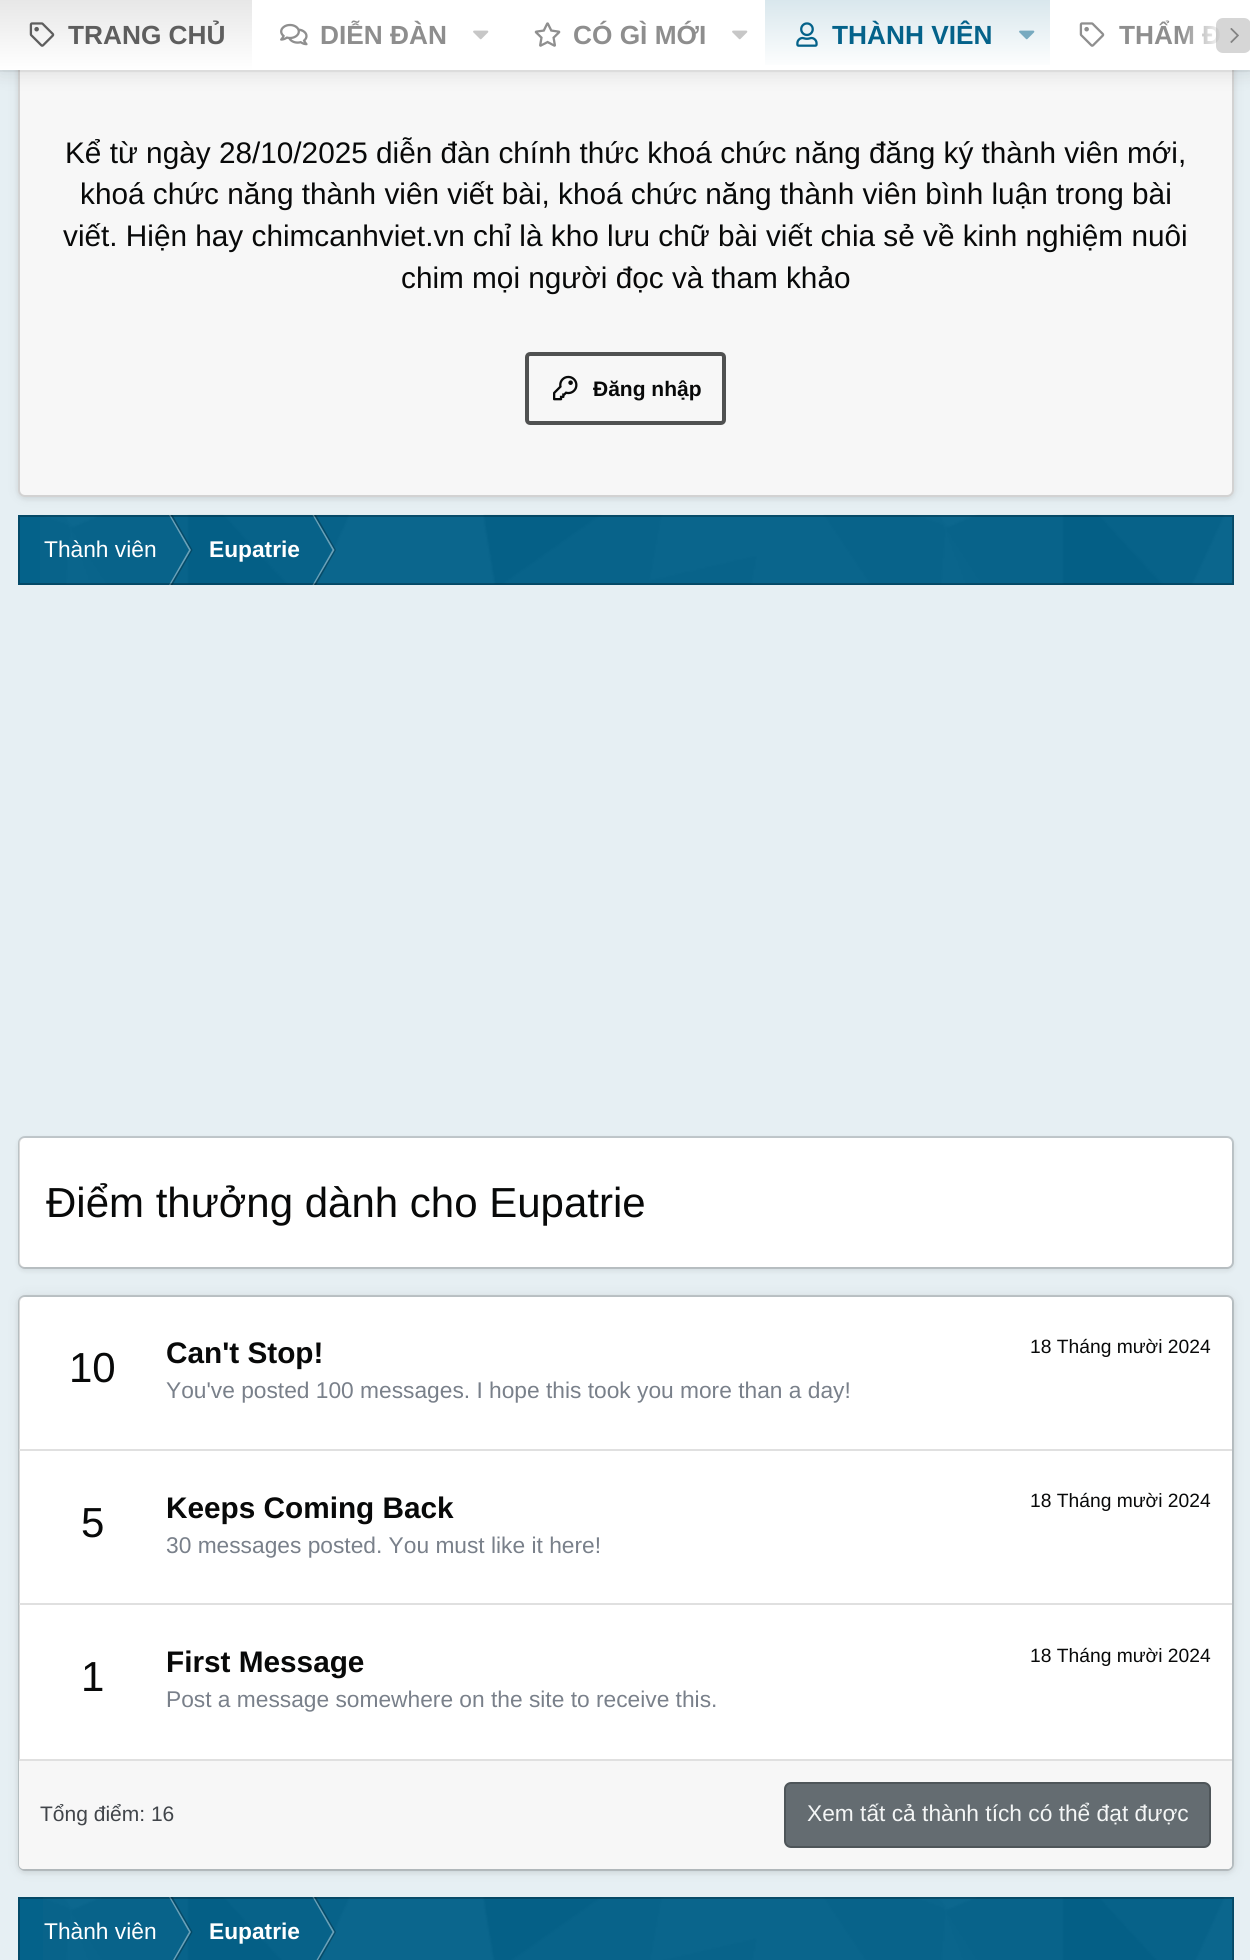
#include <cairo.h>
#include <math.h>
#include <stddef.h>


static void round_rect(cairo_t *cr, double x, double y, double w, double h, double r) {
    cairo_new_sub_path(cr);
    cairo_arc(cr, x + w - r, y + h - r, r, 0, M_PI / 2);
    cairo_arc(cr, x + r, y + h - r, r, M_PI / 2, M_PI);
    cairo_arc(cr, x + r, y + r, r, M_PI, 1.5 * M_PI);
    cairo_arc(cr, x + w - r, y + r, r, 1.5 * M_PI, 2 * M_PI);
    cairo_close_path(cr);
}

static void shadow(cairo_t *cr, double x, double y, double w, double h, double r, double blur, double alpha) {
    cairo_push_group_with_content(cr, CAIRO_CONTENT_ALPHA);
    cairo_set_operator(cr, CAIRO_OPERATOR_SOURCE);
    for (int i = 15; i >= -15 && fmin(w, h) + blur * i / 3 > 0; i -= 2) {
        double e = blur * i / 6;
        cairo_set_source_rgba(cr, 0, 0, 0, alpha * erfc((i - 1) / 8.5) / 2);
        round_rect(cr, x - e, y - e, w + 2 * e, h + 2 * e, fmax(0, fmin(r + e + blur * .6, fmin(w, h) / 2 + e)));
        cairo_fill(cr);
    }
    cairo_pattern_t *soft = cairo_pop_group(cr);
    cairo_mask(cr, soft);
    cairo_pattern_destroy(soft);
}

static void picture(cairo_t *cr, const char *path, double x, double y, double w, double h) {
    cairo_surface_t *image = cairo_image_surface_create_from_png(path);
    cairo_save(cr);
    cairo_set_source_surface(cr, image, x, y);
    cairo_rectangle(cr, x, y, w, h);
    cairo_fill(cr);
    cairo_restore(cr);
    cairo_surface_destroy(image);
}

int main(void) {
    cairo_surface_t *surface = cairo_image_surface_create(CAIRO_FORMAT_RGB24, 1250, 1960);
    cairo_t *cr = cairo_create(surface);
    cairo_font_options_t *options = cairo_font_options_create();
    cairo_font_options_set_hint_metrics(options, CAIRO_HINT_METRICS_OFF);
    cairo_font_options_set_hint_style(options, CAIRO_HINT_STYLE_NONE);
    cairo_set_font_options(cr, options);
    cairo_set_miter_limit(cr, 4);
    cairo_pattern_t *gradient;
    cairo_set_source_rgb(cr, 0.902, 0.937, 0.953);
    cairo_paint(cr);
    cairo_set_source_rgb(cr, 0, 0, 0);
    shadow(cr, 18, -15, 1216, 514, 7, 2.5, 0.08);
    shadow(cr, 18, -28, 1216, 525, 7, 7, 0.06);
    cairo_set_source_rgb(cr, 0.965, 0.965, 0.965);
    round_rect(cr, 18, -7, 1216, 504, 7);
    cairo_fill(cr);
    round_rect(cr, 19, -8, 1214, 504, 6);
    cairo_set_source_rgba(cr, 0, 0, 0, 0.15);
    cairo_stroke(cr);
    cairo_set_source_rgba(cr, 0, 0, 0, 0.05);
    cairo_rectangle(cr, 0, 70, 1250, 2);
    cairo_fill(cr);
    cairo_set_source_rgb(cr, 0, 0, 0);
    shadow(cr, 0, 4, 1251, 70, 0, 9, 0.1);
    cairo_set_source_rgb(cr, 1, 1, 1);
    cairo_rectangle(cr, 252, 0, 971, 70);
    cairo_fill(cr);
    cairo_select_font_face(cr, "Liberation Sans", CAIRO_FONT_SLANT_NORMAL, CAIRO_FONT_WEIGHT_BOLD);
    cairo_set_font_size(cr, 26.25);
    cairo_set_source_rgb(cr, 0.557, 0.557, 0.557);
    cairo_move_to(cr, 1119, 44);
    cairo_show_text(cr, "THẨM Đ");
    gradient = cairo_pattern_create_linear(1181, 35, 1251, 35);
    cairo_pattern_add_color_stop_rgba(gradient, 0, 1, 1, 1, 0);
    cairo_pattern_add_color_stop_rgba(gradient, 0.6, 1, 1, 1, 1);
    cairo_set_source(cr, gradient);
    cairo_pattern_destroy(gradient);
    cairo_rectangle(cr, 1182, 0, 68, 70);
    cairo_fill(cr);
    cairo_set_source_rgba(cr, 0.369, 0.369, 0.369, 0.25);
    round_rect(cr, 1216, 18, 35, 35, 7);
    cairo_fill(cr);
    picture(cr, "img1.png", 1230, 28, 9, 15);
    gradient = cairo_pattern_create_linear(126, 0, 126, 70);
    cairo_pattern_add_color_stop_rgba(gradient, 0, 0.906, 0.906, 0.906, 1);
    cairo_pattern_add_color_stop_rgba(gradient, 1, 1, 1, 1, 1);
    cairo_set_source(cr, gradient);
    cairo_pattern_destroy(gradient);
    cairo_rectangle(cr, 0, 0, 252, 70);
    cairo_fill(cr);
    picture(cr, "img2.png", 29, 22, 26, 25);
    cairo_set_source_rgb(cr, 0.369, 0.369, 0.369);
    cairo_move_to(cr, 68, 44);
    cairo_show_text(cr, "TRANG CHỦ");
    picture(cr, "img3.png", 280, 23, 28, 23);
    cairo_set_source_rgb(cr, 0.557, 0.557, 0.557);
    cairo_move_to(cr, 320, 44);
    cairo_show_text(cr, "DIỄN ĐÀN");
    picture(cr, "img4.png", 473, 30, 16, 10);
    picture(cr, "img5.png", 534, 22, 27, 25);
    cairo_move_to(cr, 573, 44);
    cairo_show_text(cr, "CÓ GÌ MỚI");
    picture(cr, "img4.png", 732, 30, 16, 10);
    gradient = cairo_pattern_create_linear(907, 0, 907, 70);
    cairo_pattern_add_color_stop_rgba(gradient, 0, 0.851, 0.906, 0.929, 1);
    cairo_pattern_add_color_stop_rgba(gradient, 1, 1, 1, 1, 1);
    cairo_set_source(cr, gradient);
    cairo_pattern_destroy(gradient);
    cairo_rectangle(cr, 765, 0, 285, 65);
    cairo_fill(cr);
    picture(cr, "img6.png", 796, 22, 22, 25);
    cairo_set_source_rgb(cr, 0.016, 0.384, 0.541);
    cairo_move_to(cr, 832, 44);
    cairo_show_text(cr, "THÀNH VIÊN");
    picture(cr, "img7.png", 1019, 30, 16, 10);
    picture(cr, "img8.png", 1079, 22, 26, 25);
    cairo_select_font_face(cr, "Liberation Sans", CAIRO_FONT_SLANT_NORMAL, CAIRO_FONT_WEIGHT_NORMAL);
    cairo_set_font_size(cr, 29.75);
    cairo_set_source_rgb(cr, 0.035, 0.039, 0.039);
    cairo_move_to(cr, 65, 163);
    cairo_show_text(cr, "Kể từ ngày 28/10/2025 diễn đàn chính thức khoá chức năng đăng ký thành viên mới,");
    cairo_move_to(cr, 80, 204);
    cairo_show_text(cr, "khoá chức năng thành viên viết bài, khoá chức năng thành viên bình luận trong bài");
    cairo_move_to(cr, 63, 246);
    cairo_show_text(cr, "viết. Hiện hay chimcanhviet.vn chỉ là kho lưu chữ bài viết chia sẻ về kinh nghiệm nuôi");
    cairo_move_to(cr, 401, 288);
    cairo_show_text(cr, "chim mọi người đọc và tham khảo");
    round_rect(cr, 527, 354, 197, 69, 3);
    cairo_set_source_rgb(cr, 0.314, 0.318, 0.318);
    cairo_set_line_width(cr, 4);
    cairo_stroke(cr);
    picture(cr, "img9.png", 553, 375, 25, 26);
    cairo_select_font_face(cr, "Liberation Sans", CAIRO_FONT_SLANT_NORMAL, CAIRO_FONT_WEIGHT_BOLD);
    cairo_set_font_size(cr, 21);
    cairo_set_source_rgb(cr, 0.035, 0.039, 0.039);
    cairo_move_to(cr, 593, 396);
    cairo_show_text(cr, "Đăng nhập");
    cairo_set_source_rgb(cr, 0.016, 0.384, 0.541);
    cairo_rectangle(cr, 18, 515, 1216, 70);
    cairo_fill(cr);
    picture(cr, "img10.png", 40, 514, 1193, 70);
    cairo_set_source_rgba(cr, 1, 1, 1, 0.4);
    cairo_new_path(cr);
    cairo_move_to(cr, 169, 515);
    cairo_line_to(cr, 170.5, 515);
    cairo_line_to(cr, 191, 550);
    cairo_line_to(cr, 189, 550);
    cairo_close_path(cr);
    cairo_fill(cr);
    cairo_set_source_rgba(cr, 0, 0, 0, 0.25);
    cairo_new_path(cr);
    cairo_move_to(cr, 170.5, 515);
    cairo_line_to(cr, 172.5, 515);
    cairo_line_to(cr, 192.5, 550);
    cairo_line_to(cr, 191, 550);
    cairo_close_path(cr);
    cairo_fill(cr);
    cairo_set_source_rgba(cr, 1, 1, 1, 0.4);
    cairo_new_path(cr);
    cairo_move_to(cr, 189, 550);
    cairo_line_to(cr, 191, 550);
    cairo_line_to(cr, 170.5, 585);
    cairo_line_to(cr, 169, 585);
    cairo_close_path(cr);
    cairo_fill(cr);
    cairo_set_source_rgba(cr, 0, 0, 0, 0.25);
    cairo_new_path(cr);
    cairo_move_to(cr, 191, 550);
    cairo_line_to(cr, 192.5, 550);
    cairo_line_to(cr, 172.5, 585);
    cairo_line_to(cr, 170.5, 585);
    cairo_close_path(cr);
    cairo_fill(cr);
    cairo_set_source_rgb(cr, 0.416, 0.631, 0.722);
    cairo_new_path(cr);
    cairo_move_to(cr, 312.5, 515);
    cairo_line_to(cr, 314, 515);
    cairo_line_to(cr, 334.5, 550);
    cairo_line_to(cr, 332.5, 550);
    cairo_close_path(cr);
    cairo_fill(cr);
    cairo_set_source_rgba(cr, 0, 0, 0, 0.25);
    cairo_new_path(cr);
    cairo_move_to(cr, 314, 515);
    cairo_line_to(cr, 316, 515);
    cairo_line_to(cr, 336, 550);
    cairo_line_to(cr, 334.5, 550);
    cairo_close_path(cr);
    cairo_fill(cr);
    cairo_set_source_rgba(cr, 1, 1, 1, 0.4);
    cairo_new_path(cr);
    cairo_move_to(cr, 332.5, 550);
    cairo_line_to(cr, 334.5, 550);
    cairo_line_to(cr, 314, 585);
    cairo_line_to(cr, 312.5, 585);
    cairo_close_path(cr);
    cairo_fill(cr);
    cairo_set_source_rgba(cr, 0, 0, 0, 0.25);
    cairo_new_path(cr);
    cairo_move_to(cr, 334.5, 550);
    cairo_line_to(cr, 336, 550);
    cairo_line_to(cr, 316, 585);
    cairo_line_to(cr, 314, 585);
    cairo_close_path(cr);
    cairo_fill(cr);
    cairo_rectangle(cr, 19, 516, 1214, 68);
    cairo_set_source_rgba(cr, 0.008, 0.012, 0.012, 0.25);
    cairo_set_line_width(cr, 2);
    cairo_stroke(cr);
    cairo_select_font_face(cr, "Liberation Sans", CAIRO_FONT_SLANT_NORMAL, CAIRO_FONT_WEIGHT_NORMAL);
    cairo_set_font_size(cr, 22.75);
    cairo_set_source_rgb(cr, 1, 1, 1);
    cairo_move_to(cr, 44, 557);
    cairo_show_text(cr, "Thành viên");
    cairo_select_font_face(cr, "Liberation Sans", CAIRO_FONT_SLANT_NORMAL, CAIRO_FONT_WEIGHT_BOLD);
    cairo_move_to(cr, 209, 557);
    cairo_show_text(cr, "Eupatrie");
    cairo_set_source_rgb(cr, 0, 0, 0);
    shadow(cr, 18, 1138, 1216, 133, 7, 2.5, 0.08);
    cairo_set_source_rgb(cr, 1, 1, 1);
    round_rect(cr, 19, 1138, 1213, 129, 5);
    cairo_fill(cr);
    round_rect(cr, 19, 1137, 1214, 131, 6);
    cairo_set_source_rgba(cr, 0, 0, 0, 0.15);
    cairo_stroke(cr);
    cairo_select_font_face(cr, "Liberation Sans", CAIRO_FONT_SLANT_NORMAL, CAIRO_FONT_WEIGHT_NORMAL);
    cairo_set_font_size(cr, 42);
    cairo_set_source_rgb(cr, 0.035, 0.039, 0.039);
    cairo_move_to(cr, 46, 1217);
    cairo_show_text(cr, "Điểm thưởng dành cho Eupatrie");
    cairo_set_source_rgb(cr, 0, 0, 0);
    shadow(cr, 18, 1297, 1216, 576, 7, 2.5, 0.08);
    shadow(cr, 18, 1295, 1216, 576, 7, 7, 0.06);
    cairo_set_source_rgb(cr, 1, 1, 1);
    round_rect(cr, 19, 1297, 1213, 572, 5);
    cairo_fill(cr);
    round_rect(cr, 19, 1296, 1214, 574, 6);
    cairo_set_source_rgba(cr, 0, 0, 0, 0.15);
    cairo_stroke(cr);
    cairo_set_source_rgb(cr, 0.035, 0.039, 0.039);
    cairo_move_to(cr, 69, 1382);
    cairo_show_text(cr, "10");
    cairo_select_font_face(cr, "Liberation Sans", CAIRO_FONT_SLANT_NORMAL, CAIRO_FONT_WEIGHT_BOLD);
    cairo_set_font_size(cr, 29.75);
    cairo_move_to(cr, 166, 1363);
    cairo_show_text(cr, "Can't Stop!");
    cairo_select_font_face(cr, "Liberation Sans", CAIRO_FONT_SLANT_NORMAL, CAIRO_FONT_WEIGHT_NORMAL);
    cairo_set_font_size(cr, 19.25);
    cairo_move_to(cr, 1030, 1353);
    cairo_show_text(cr, "18 Tháng mười 2024");
    cairo_set_font_size(cr, 22.75);
    cairo_set_source_rgb(cr, 0.475, 0.502, 0.541);
    cairo_move_to(cr, 166, 1398);
    cairo_show_text(cr, "You've posted 100 messages. I hope this took you more than a day!");
    cairo_set_source_rgb(cr, 0.878, 0.878, 0.878);
    cairo_rectangle(cr, 19, 1449, 1213, 2);
    cairo_fill(cr);
    cairo_set_font_size(cr, 42);
    cairo_set_source_rgb(cr, 0.035, 0.039, 0.039);
    cairo_move_to(cr, 81, 1537);
    cairo_show_text(cr, "5");
    cairo_select_font_face(cr, "Liberation Sans", CAIRO_FONT_SLANT_NORMAL, CAIRO_FONT_WEIGHT_BOLD);
    cairo_set_font_size(cr, 29.75);
    cairo_move_to(cr, 166, 1518);
    cairo_show_text(cr, "Keeps Coming Back");
    cairo_select_font_face(cr, "Liberation Sans", CAIRO_FONT_SLANT_NORMAL, CAIRO_FONT_WEIGHT_NORMAL);
    cairo_set_font_size(cr, 19.25);
    cairo_move_to(cr, 1030, 1507);
    cairo_show_text(cr, "18 Tháng mười 2024");
    cairo_set_font_size(cr, 22.75);
    cairo_set_source_rgb(cr, 0.475, 0.502, 0.541);
    cairo_move_to(cr, 166, 1553);
    cairo_show_text(cr, "30 messages posted. You must like it here!");
    cairo_set_source_rgb(cr, 0.878, 0.878, 0.878);
    cairo_rectangle(cr, 19, 1603, 1213, 2);
    cairo_fill(cr);
    cairo_set_font_size(cr, 42);
    cairo_set_source_rgb(cr, 0.035, 0.039, 0.039);
    cairo_move_to(cr, 81, 1691);
    cairo_show_text(cr, "1");
    cairo_select_font_face(cr, "Liberation Sans", CAIRO_FONT_SLANT_NORMAL, CAIRO_FONT_WEIGHT_BOLD);
    cairo_set_font_size(cr, 29.75);
    cairo_move_to(cr, 166, 1672);
    cairo_show_text(cr, "First Message");
    cairo_select_font_face(cr, "Liberation Sans", CAIRO_FONT_SLANT_NORMAL, CAIRO_FONT_WEIGHT_NORMAL);
    cairo_set_font_size(cr, 19.25);
    cairo_move_to(cr, 1030, 1662);
    cairo_show_text(cr, "18 Tháng mười 2024");
    cairo_set_font_size(cr, 22.75);
    cairo_set_source_rgb(cr, 0.475, 0.502, 0.541);
    cairo_move_to(cr, 166, 1707);
    cairo_show_text(cr, "Post a message somewhere on the site to receive this.");
    cairo_set_source_rgb(cr, 0.965, 0.965, 0.965);
    cairo_new_path(cr);
    cairo_move_to(cr, 19, 1759);
    cairo_line_to(cr, 1232, 1759);
    cairo_line_to(cr, 1232, 1864);
    cairo_curve_to(cr, 1232, 1867, 1230, 1869, 1227, 1869);
    cairo_line_to(cr, 24, 1869);
    cairo_curve_to(cr, 21, 1869, 19, 1867, 19, 1864);
    cairo_close_path(cr);
    cairo_fill(cr);
    cairo_set_source_rgb(cr, 0.878, 0.878, 0.878);
    cairo_rectangle(cr, 19, 1759, 1213, 2);
    cairo_fill(cr);
    cairo_set_font_size(cr, 21);
    cairo_set_source_rgb(cr, 0.255, 0.271, 0.29);
    cairo_move_to(cr, 40, 1821);
    cairo_show_text(cr, "Tổng điểm: 16");
    cairo_set_source_rgb(cr, 0.392, 0.424, 0.443);
    round_rect(cr, 785, 1783, 425, 64, 6);
    cairo_fill_preserve(cr);
    cairo_set_source_rgb(cr, 0.306, 0.333, 0.349);
    cairo_stroke(cr);
    cairo_set_font_size(cr, 22.75);
    cairo_set_source_rgb(cr, 0.957, 0.961, 0.961);
    cairo_move_to(cr, 807, 1821);
    cairo_show_text(cr, "Xem tất cả thành tích có thể đạt được");
    cairo_set_source_rgb(cr, 0.016, 0.384, 0.541);
    cairo_rectangle(cr, 18, 1897, 1216, 63);
    cairo_fill(cr);
    picture(cr, "img11.png", 43, 1897, 1190, 63);
    cairo_set_source_rgba(cr, 1, 1, 1, 0.4);
    cairo_new_path(cr);
    cairo_move_to(cr, 169, 1897);
    cairo_line_to(cr, 170.5, 1897);
    cairo_line_to(cr, 191, 1932);
    cairo_line_to(cr, 189, 1932);
    cairo_close_path(cr);
    cairo_fill(cr);
    cairo_set_source_rgba(cr, 0, 0, 0, 0.25);
    cairo_new_path(cr);
    cairo_move_to(cr, 170.5, 1897);
    cairo_line_to(cr, 172.5, 1897);
    cairo_line_to(cr, 192.5, 1932);
    cairo_line_to(cr, 191, 1932);
    cairo_close_path(cr);
    cairo_fill(cr);
    cairo_set_source_rgba(cr, 1, 1, 1, 0.4);
    cairo_new_path(cr);
    cairo_move_to(cr, 189, 1932);
    cairo_line_to(cr, 191, 1932);
    cairo_line_to(cr, 170.5, 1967);
    cairo_line_to(cr, 169, 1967);
    cairo_close_path(cr);
    cairo_fill(cr);
    cairo_set_source_rgba(cr, 0, 0, 0, 0.25);
    cairo_new_path(cr);
    cairo_move_to(cr, 191, 1932);
    cairo_line_to(cr, 192.5, 1932);
    cairo_line_to(cr, 172.5, 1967);
    cairo_line_to(cr, 170.5, 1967);
    cairo_close_path(cr);
    cairo_fill(cr);
    cairo_set_source_rgb(cr, 0.416, 0.631, 0.722);
    cairo_new_path(cr);
    cairo_move_to(cr, 312.5, 1897);
    cairo_line_to(cr, 314, 1897);
    cairo_line_to(cr, 334.5, 1932);
    cairo_line_to(cr, 332.5, 1932);
    cairo_close_path(cr);
    cairo_fill(cr);
    cairo_set_source_rgba(cr, 0, 0, 0, 0.25);
    cairo_new_path(cr);
    cairo_move_to(cr, 314, 1897);
    cairo_line_to(cr, 316, 1897);
    cairo_line_to(cr, 336, 1932);
    cairo_line_to(cr, 334.5, 1932);
    cairo_close_path(cr);
    cairo_fill(cr);
    cairo_set_source_rgba(cr, 1, 1, 1, 0.4);
    cairo_new_path(cr);
    cairo_move_to(cr, 332.5, 1932);
    cairo_line_to(cr, 334.5, 1932);
    cairo_line_to(cr, 314, 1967);
    cairo_line_to(cr, 312.5, 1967);
    cairo_close_path(cr);
    cairo_fill(cr);
    cairo_set_source_rgba(cr, 0, 0, 0, 0.25);
    cairo_new_path(cr);
    cairo_move_to(cr, 334.5, 1932);
    cairo_line_to(cr, 336, 1932);
    cairo_line_to(cr, 316, 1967);
    cairo_line_to(cr, 314, 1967);
    cairo_close_path(cr);
    cairo_fill(cr);
    cairo_rectangle(cr, 19, 1898, 1214, 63);
    cairo_set_source_rgba(cr, 0.008, 0.012, 0.012, 0.25);
    cairo_stroke(cr);
    cairo_set_source_rgb(cr, 1, 1, 1);
    cairo_move_to(cr, 44, 1939);
    cairo_show_text(cr, "Thành viên");
    cairo_select_font_face(cr, "Liberation Sans", CAIRO_FONT_SLANT_NORMAL, CAIRO_FONT_WEIGHT_BOLD);
    cairo_move_to(cr, 209, 1939);
    cairo_show_text(cr, "Eupatrie");
    cairo_surface_write_to_png(surface, "page.png");
    cairo_font_options_destroy(options);
    cairo_destroy(cr);
    cairo_surface_destroy(surface);
    return 0;
}
